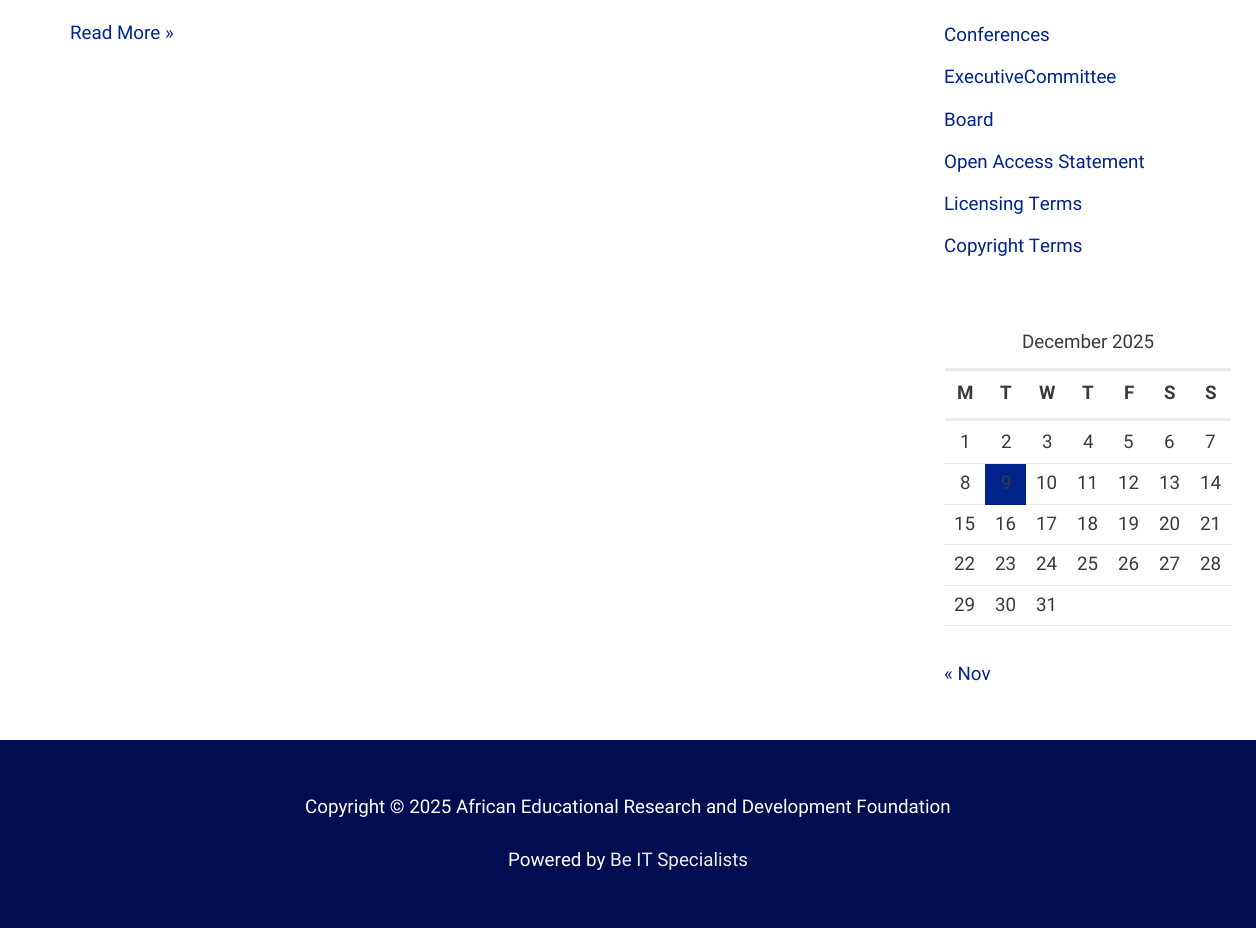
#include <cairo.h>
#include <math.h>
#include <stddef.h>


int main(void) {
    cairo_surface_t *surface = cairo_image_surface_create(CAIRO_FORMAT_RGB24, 1256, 928);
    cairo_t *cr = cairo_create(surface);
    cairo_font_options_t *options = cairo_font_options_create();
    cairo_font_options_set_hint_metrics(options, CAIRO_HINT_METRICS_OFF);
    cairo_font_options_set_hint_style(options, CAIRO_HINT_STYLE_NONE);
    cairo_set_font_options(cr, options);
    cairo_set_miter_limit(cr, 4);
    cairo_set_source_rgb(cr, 1, 1, 1);
    cairo_paint(cr);
    cairo_select_font_face(cr, "Roboto", CAIRO_FONT_SLANT_NORMAL, CAIRO_FONT_WEIGHT_NORMAL);
    cairo_set_font_size(cr, 18.75);
    cairo_set_source_rgb(cr, 0.004, 0.141, 0.549);
    cairo_move_to(cr, 70, 39);
    cairo_show_text(cr, "Read More »");
    cairo_move_to(cr, 944, 41);
    cairo_show_text(cr, "Conferences");
    cairo_move_to(cr, 944, 83);
    cairo_show_text(cr, "ExecutiveCommittee");
    cairo_move_to(cr, 944, 126);
    cairo_show_text(cr, "Board");
    cairo_move_to(cr, 944, 168);
    cairo_show_text(cr, "Open Access Statement");
    cairo_move_to(cr, 944, 210);
    cairo_show_text(cr, "Licensing Terms");
    cairo_move_to(cr, 944, 252);
    cairo_show_text(cr, "Copyright Terms");
    cairo_set_source_rgb(cr, 0.227, 0.227, 0.227);
    cairo_move_to(cr, 1022, 348);
    cairo_show_text(cr, "December 2025");
    cairo_set_source_rgb(cr, 0.918, 0.918, 0.918);
    cairo_rectangle(cr, 945, 368, 286, 3);
    cairo_fill(cr);
    cairo_rectangle(cr, 945, 418, 286, 3);
    cairo_fill(cr);
    cairo_select_font_face(cr, "Roboto", CAIRO_FONT_SLANT_NORMAL, CAIRO_FONT_WEIGHT_BOLD);
    cairo_set_source_rgb(cr, 0.227, 0.227, 0.227);
    cairo_move_to(cr, 957, 399);
    cairo_show_text(cr, "M");
    cairo_move_to(cr, 1000, 399);
    cairo_show_text(cr, "T");
    cairo_move_to(cr, 1039, 399);
    cairo_show_text(cr, "W");
    cairo_move_to(cr, 1082, 399);
    cairo_show_text(cr, "T");
    cairo_move_to(cr, 1124, 399);
    cairo_show_text(cr, "F");
    cairo_move_to(cr, 1164, 399);
    cairo_show_text(cr, "S");
    cairo_move_to(cr, 1205, 399);
    cairo_show_text(cr, "S");
    cairo_set_source_rgb(cr, 0.902, 0.902, 0.902);
    cairo_rectangle(cr, 945, 463, 286, 1);
    cairo_fill(cr);
    cairo_select_font_face(cr, "Roboto", CAIRO_FONT_SLANT_NORMAL, CAIRO_FONT_WEIGHT_NORMAL);
    cairo_set_source_rgb(cr, 0.227, 0.227, 0.227);
    cairo_move_to(cr, 960, 448);
    cairo_show_text(cr, "1");
    cairo_move_to(cr, 1001, 448);
    cairo_show_text(cr, "2");
    cairo_move_to(cr, 1042, 448);
    cairo_show_text(cr, "3");
    cairo_move_to(cr, 1083, 448);
    cairo_show_text(cr, "4");
    cairo_move_to(cr, 1123, 448);
    cairo_show_text(cr, "5");
    cairo_move_to(cr, 1164, 448);
    cairo_show_text(cr, "6");
    cairo_move_to(cr, 1205, 448);
    cairo_show_text(cr, "7");
    cairo_set_source_rgb(cr, 0.902, 0.902, 0.902);
    cairo_rectangle(cr, 945, 504, 40, 1);
    cairo_fill(cr);
    cairo_set_source_rgb(cr, 0.227, 0.227, 0.227);
    cairo_move_to(cr, 960, 489);
    cairo_show_text(cr, "8");
    cairo_set_source_rgb(cr, 0.004, 0.141, 0.549);
    cairo_rectangle(cr, 985, 464, 41, 40);
    cairo_fill(cr);
    cairo_set_source_rgb(cr, 0.004, 0.125, 0.494);
    cairo_rectangle(cr, 985, 504, 41, 1);
    cairo_fill(cr);
    cairo_set_source_rgb(cr, 0.227, 0.227, 0.227);
    cairo_move_to(cr, 1001, 489);
    cairo_show_text(cr, "9");
    cairo_set_source_rgb(cr, 0.902, 0.902, 0.902);
    cairo_rectangle(cr, 1026, 504, 205, 1);
    cairo_fill(cr);
    cairo_set_source_rgb(cr, 0.227, 0.227, 0.227);
    cairo_move_to(cr, 1036, 489);
    cairo_show_text(cr, "10");
    cairo_move_to(cr, 1077, 489);
    cairo_show_text(cr, "11");
    cairo_move_to(cr, 1118, 489);
    cairo_show_text(cr, "12");
    cairo_move_to(cr, 1159, 489);
    cairo_show_text(cr, "13");
    cairo_move_to(cr, 1200, 489);
    cairo_show_text(cr, "14");
    cairo_set_source_rgb(cr, 0.902, 0.902, 0.902);
    cairo_rectangle(cr, 945, 544, 286, 1);
    cairo_fill(cr);
    cairo_set_source_rgb(cr, 0.227, 0.227, 0.227);
    cairo_move_to(cr, 954, 530);
    cairo_show_text(cr, "15");
    cairo_move_to(cr, 995, 530);
    cairo_show_text(cr, "16");
    cairo_move_to(cr, 1036, 530);
    cairo_show_text(cr, "17");
    cairo_move_to(cr, 1077, 530);
    cairo_show_text(cr, "18");
    cairo_move_to(cr, 1118, 530);
    cairo_show_text(cr, "19");
    cairo_move_to(cr, 1159, 530);
    cairo_show_text(cr, "20");
    cairo_move_to(cr, 1200, 530);
    cairo_show_text(cr, "21");
    cairo_set_source_rgb(cr, 0.902, 0.902, 0.902);
    cairo_rectangle(cr, 945, 585, 286, 1);
    cairo_fill(cr);
    cairo_set_source_rgb(cr, 0.227, 0.227, 0.227);
    cairo_move_to(cr, 954, 570);
    cairo_show_text(cr, "22");
    cairo_move_to(cr, 995, 570);
    cairo_show_text(cr, "23");
    cairo_move_to(cr, 1036, 570);
    cairo_show_text(cr, "24");
    cairo_move_to(cr, 1077, 570);
    cairo_show_text(cr, "25");
    cairo_move_to(cr, 1118, 570);
    cairo_show_text(cr, "26");
    cairo_move_to(cr, 1159, 570);
    cairo_show_text(cr, "27");
    cairo_move_to(cr, 1200, 570);
    cairo_show_text(cr, "28");
    cairo_set_source_rgb(cr, 0.902, 0.902, 0.902);
    cairo_rectangle(cr, 945, 625, 286, 1);
    cairo_fill(cr);
    cairo_set_source_rgb(cr, 0.227, 0.227, 0.227);
    cairo_move_to(cr, 954, 611);
    cairo_show_text(cr, "29");
    cairo_move_to(cr, 995, 611);
    cairo_show_text(cr, "30");
    cairo_move_to(cr, 1036, 611);
    cairo_show_text(cr, "31");
    cairo_set_source_rgb(cr, 0.004, 0.141, 0.549);
    cairo_move_to(cr, 944, 680);
    cairo_show_text(cr, "« Nov");
    cairo_set_source_rgb(cr, 0, 0.051, 0.318);
    cairo_rectangle(cr, 0, 740, 1256, 188);
    cairo_fill(cr);
    cairo_set_source_rgb(cr, 1, 1, 1);
    cairo_move_to(cr, 305, 813);
    cairo_show_text(cr, "Copyright © 2025 African Educational Research and Development Foundation");
    cairo_move_to(cr, 508, 866);
    cairo_show_text(cr, "Powered by");
    cairo_set_source_rgb(cr, 0.918, 0.918, 0.918);
    cairo_move_to(cr, 610, 866);
    cairo_show_text(cr, "Be IT Specialists");
    cairo_surface_write_to_png(surface, "page.png");
    cairo_font_options_destroy(options);
    cairo_destroy(cr);
    cairo_surface_destroy(surface);
    return 0;
}
